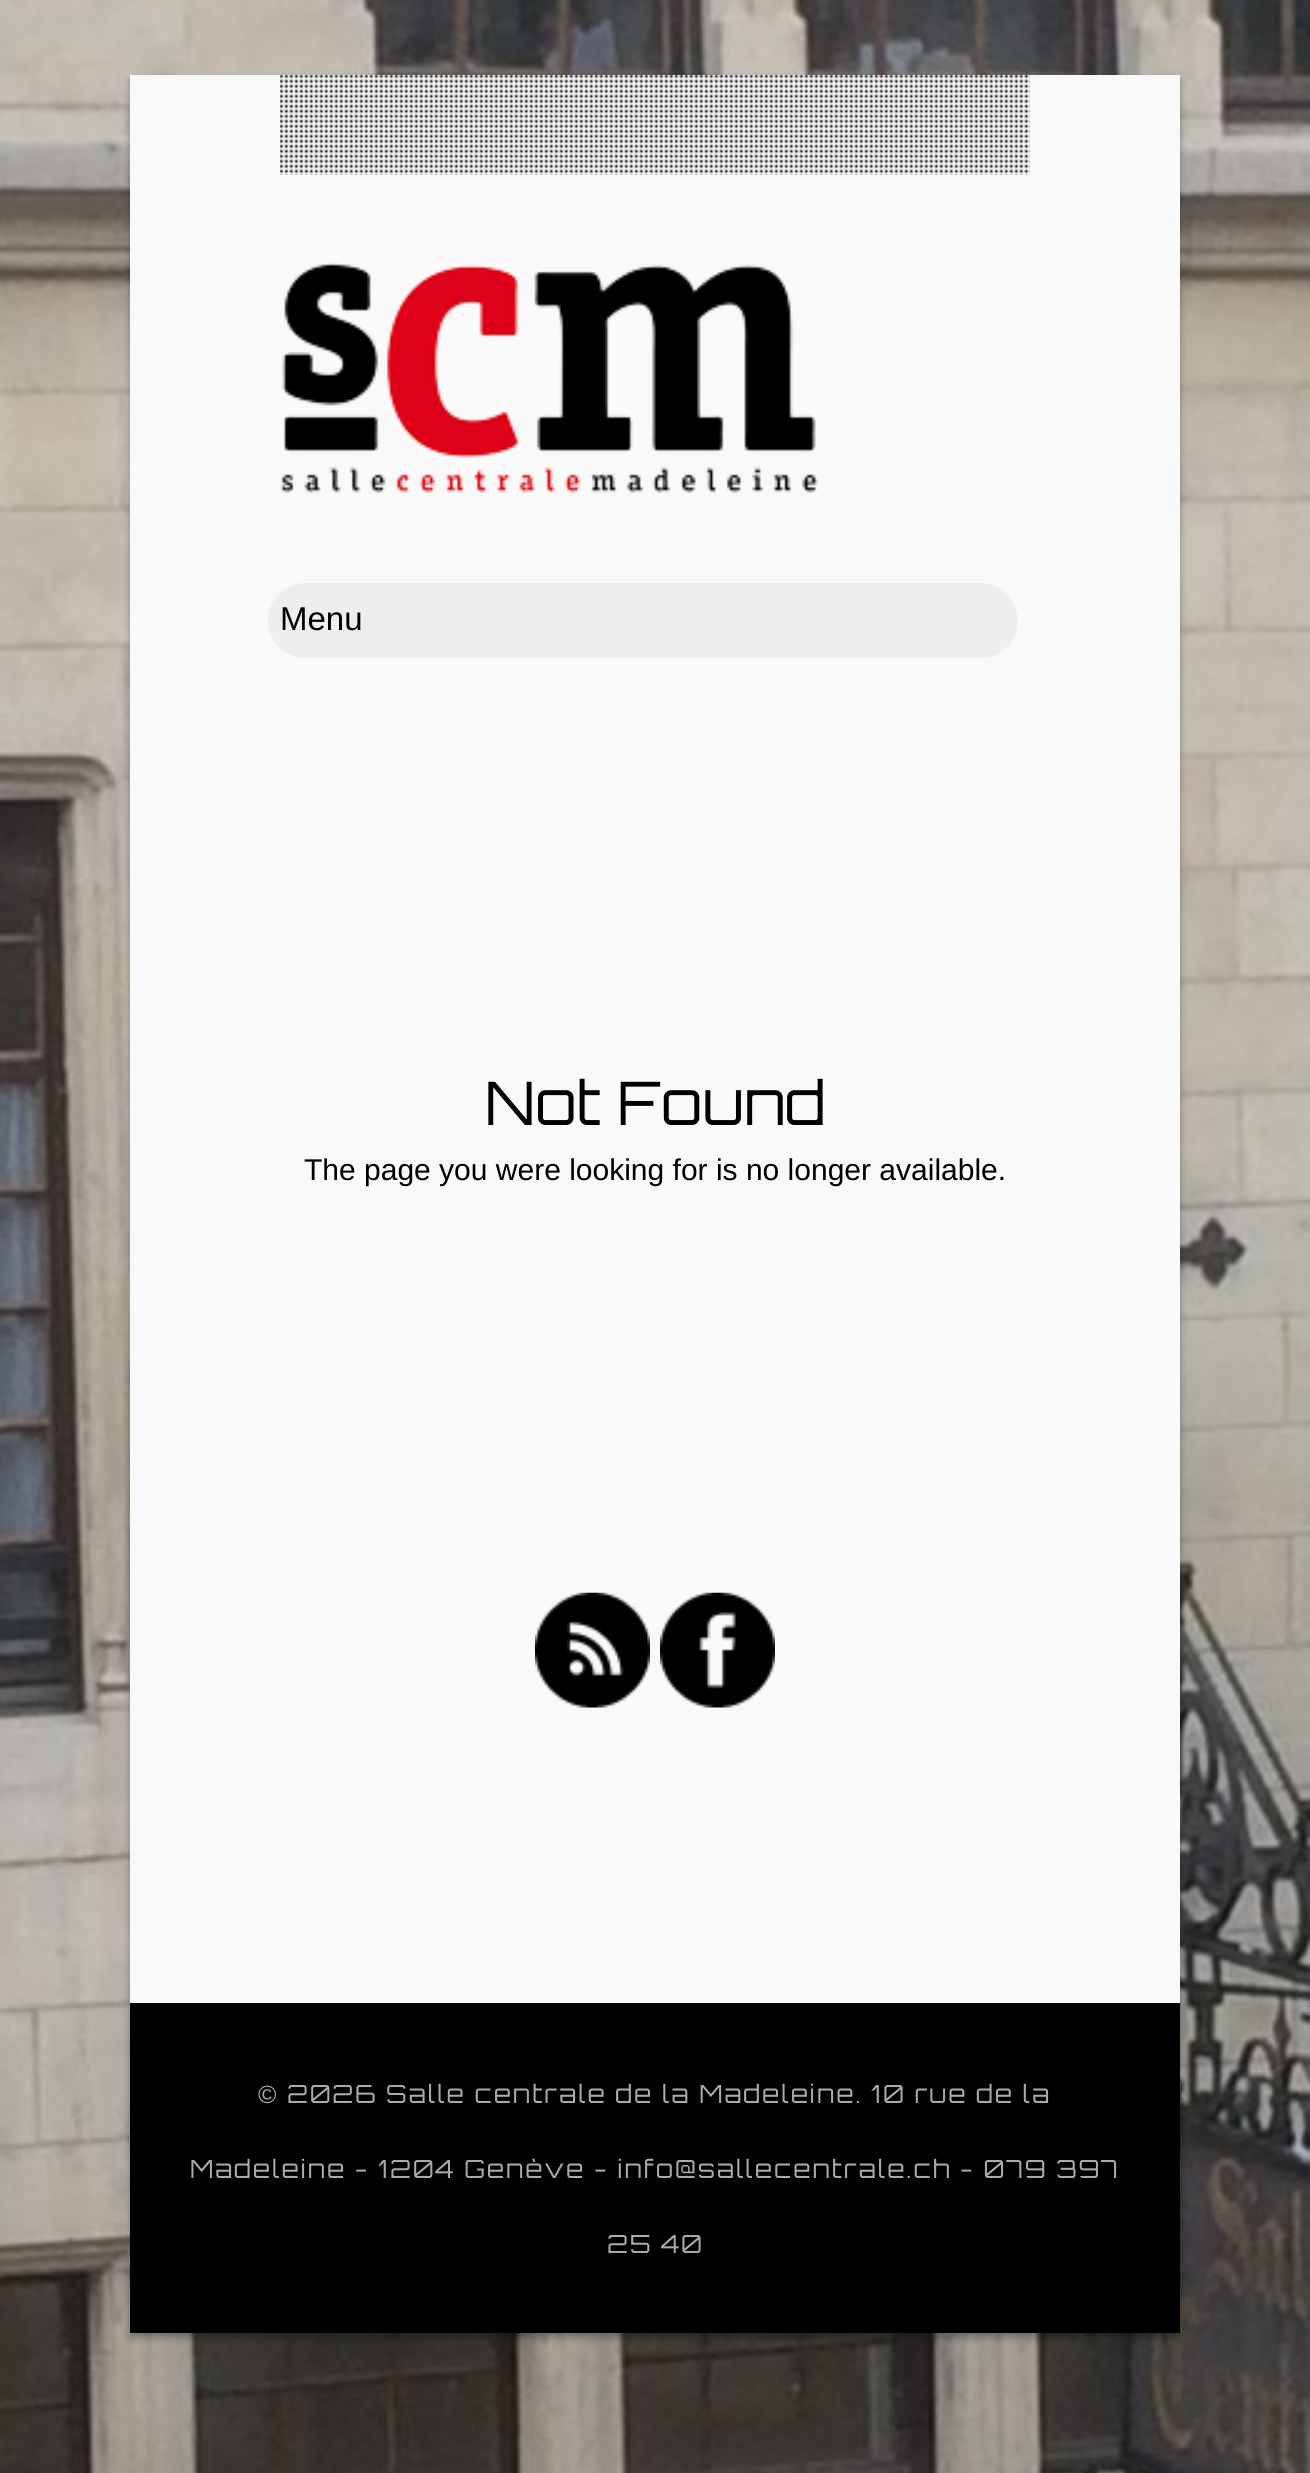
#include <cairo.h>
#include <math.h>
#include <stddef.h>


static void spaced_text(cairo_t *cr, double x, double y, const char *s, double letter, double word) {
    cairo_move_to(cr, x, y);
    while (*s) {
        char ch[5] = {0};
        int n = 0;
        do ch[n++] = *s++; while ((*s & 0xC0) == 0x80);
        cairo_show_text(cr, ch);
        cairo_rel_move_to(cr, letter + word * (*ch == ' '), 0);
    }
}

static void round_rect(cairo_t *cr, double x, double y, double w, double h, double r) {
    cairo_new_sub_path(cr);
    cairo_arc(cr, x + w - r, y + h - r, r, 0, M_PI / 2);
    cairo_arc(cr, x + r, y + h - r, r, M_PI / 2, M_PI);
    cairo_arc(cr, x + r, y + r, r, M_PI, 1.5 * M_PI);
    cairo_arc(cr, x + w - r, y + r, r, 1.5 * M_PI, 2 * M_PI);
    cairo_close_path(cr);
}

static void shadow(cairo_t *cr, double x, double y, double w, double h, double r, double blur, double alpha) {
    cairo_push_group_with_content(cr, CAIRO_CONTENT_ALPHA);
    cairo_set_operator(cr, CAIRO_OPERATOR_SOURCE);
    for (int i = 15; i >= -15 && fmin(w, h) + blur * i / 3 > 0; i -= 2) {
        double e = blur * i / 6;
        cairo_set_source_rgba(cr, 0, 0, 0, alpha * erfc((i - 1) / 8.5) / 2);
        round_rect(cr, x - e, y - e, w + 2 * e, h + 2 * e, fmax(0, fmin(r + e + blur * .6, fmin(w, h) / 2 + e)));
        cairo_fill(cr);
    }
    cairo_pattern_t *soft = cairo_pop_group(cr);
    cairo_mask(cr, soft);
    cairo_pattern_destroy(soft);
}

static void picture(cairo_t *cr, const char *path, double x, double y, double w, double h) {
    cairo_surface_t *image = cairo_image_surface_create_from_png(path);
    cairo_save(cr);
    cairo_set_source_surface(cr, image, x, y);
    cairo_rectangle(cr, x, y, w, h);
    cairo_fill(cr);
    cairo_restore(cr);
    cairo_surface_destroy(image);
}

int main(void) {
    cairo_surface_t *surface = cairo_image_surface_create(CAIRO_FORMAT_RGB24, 1310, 2473);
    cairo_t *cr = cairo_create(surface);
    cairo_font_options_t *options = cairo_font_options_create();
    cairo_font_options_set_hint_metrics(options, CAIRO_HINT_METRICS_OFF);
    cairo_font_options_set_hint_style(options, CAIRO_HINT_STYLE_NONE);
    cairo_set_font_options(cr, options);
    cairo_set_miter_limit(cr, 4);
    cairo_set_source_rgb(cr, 1, 1, 1);
    cairo_paint(cr);
    picture(cr, "img1.png", 0, 0, 1310, 2473);
    cairo_set_source_rgb(cr, 0, 0, 0);
    shadow(cr, 130, 80, 1050, 2258, 0, 4, 0.3);
    cairo_set_source_rgb(cr, 0.973, 0.973, 0.973);
    cairo_rectangle(cr, 130, 75, 1050, 1928);
    cairo_fill(cr);
    picture(cr, "img2.png", 280, 75, 750, 100);
    picture(cr, "img3.png", 280, 262, 538, 231);
    cairo_set_source_rgb(cr, 0.933, 0.933, 0.933);
    round_rect(cr, 268, 583, 750, 75, 37.5);
    cairo_fill(cr);
    cairo_select_font_face(cr, "Liberation Sans", CAIRO_FONT_SLANT_NORMAL, CAIRO_FONT_WEIGHT_NORMAL);
    cairo_set_font_size(cr, 33);
    cairo_set_source_rgb(cr, 0, 0, 0);
    cairo_move_to(cr, 280, 630);
    cairo_show_text(cr, "Menu");
    cairo_select_font_face(cr, "Orbitron", CAIRO_FONT_SLANT_NORMAL, CAIRO_FONT_WEIGHT_NORMAL);
    cairo_set_font_size(cr, 60);
    cairo_move_to(cr, 485, 1125);
    cairo_show_text(cr, "Not Found");
    cairo_select_font_face(cr, "Liberation Sans", CAIRO_FONT_SLANT_NORMAL, CAIRO_FONT_WEIGHT_NORMAL);
    cairo_set_font_size(cr, 30);
    cairo_move_to(cr, 304, 1180);
    cairo_show_text(cr, "The page you were looking for is no longer available.");
    picture(cr, "img4.png", 535, 1592, 115, 116);
    picture(cr, "img5.png", 660, 1592, 115, 116);
    cairo_rectangle(cr, 130, 2003, 1050, 330);
    cairo_fill(cr);
    cairo_set_font_size(cr, 25);
    cairo_set_source_rgb(cr, 0.667, 0.667, 0.667);
    spaced_text(cr, 258, 2103, "©", 1.88, 0);
    cairo_select_font_face(cr, "Orbitron", CAIRO_FONT_SLANT_NORMAL, CAIRO_FONT_WEIGHT_NORMAL);
    spaced_text(cr, 287, 2103, "2026 Salle centrale de la Madeleine. 10 rue de la", 1.88, 0);
    spaced_text(cr, 190, 2178, "Madeleine - 1204 Genève - info@sallecentrale.ch - 079 397", 1.88, 0);
    spaced_text(cr, 607, 2253, "25 40", 1.88, 0);
    cairo_surface_write_to_png(surface, "page.png");
    cairo_font_options_destroy(options);
    cairo_destroy(cr);
    cairo_surface_destroy(surface);
    return 0;
}
